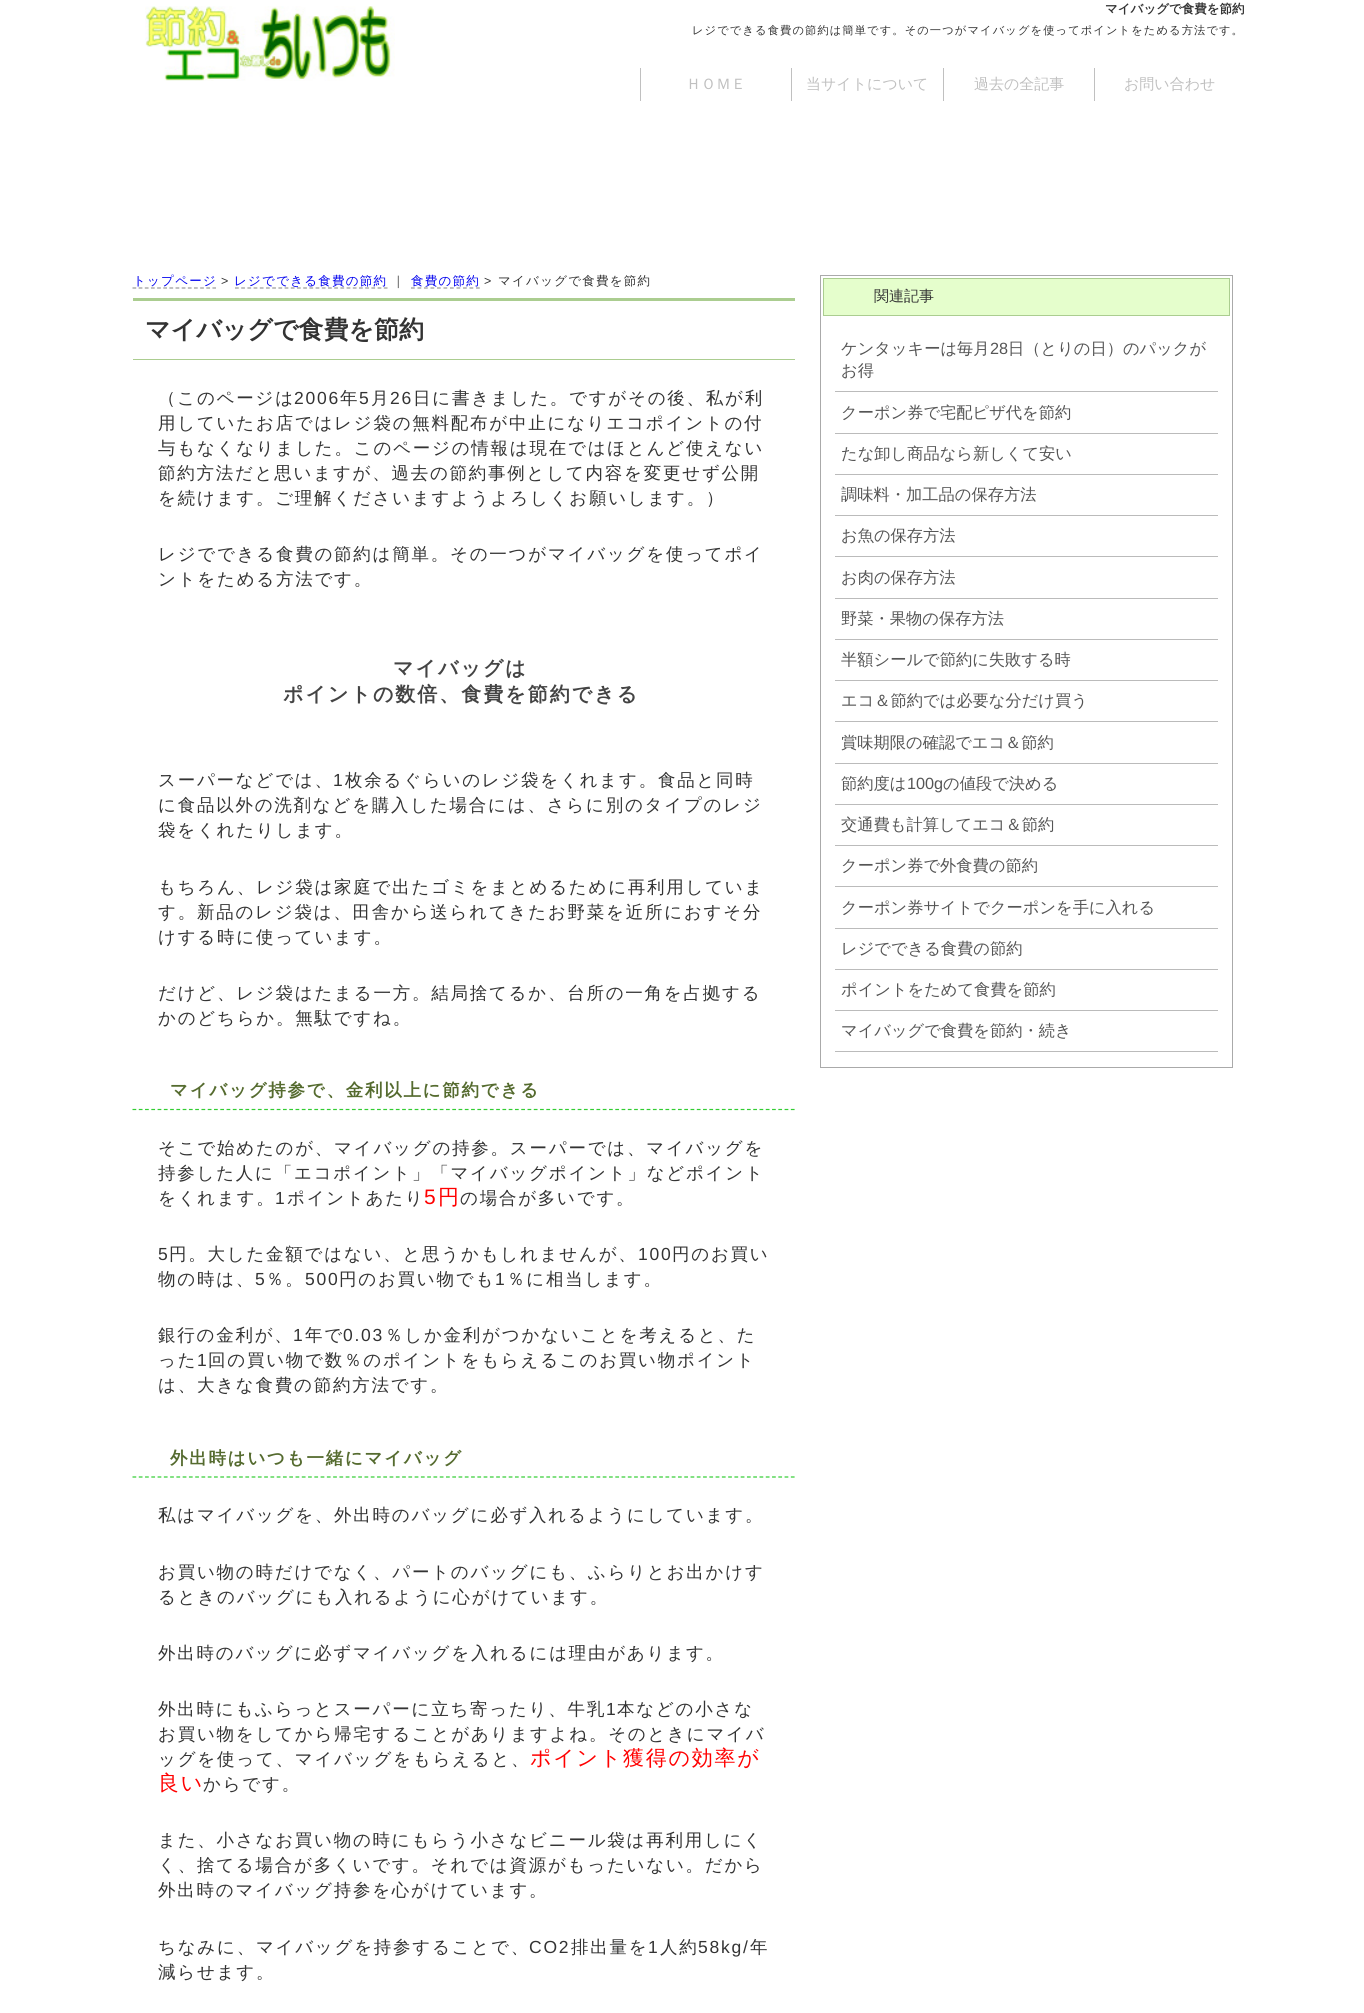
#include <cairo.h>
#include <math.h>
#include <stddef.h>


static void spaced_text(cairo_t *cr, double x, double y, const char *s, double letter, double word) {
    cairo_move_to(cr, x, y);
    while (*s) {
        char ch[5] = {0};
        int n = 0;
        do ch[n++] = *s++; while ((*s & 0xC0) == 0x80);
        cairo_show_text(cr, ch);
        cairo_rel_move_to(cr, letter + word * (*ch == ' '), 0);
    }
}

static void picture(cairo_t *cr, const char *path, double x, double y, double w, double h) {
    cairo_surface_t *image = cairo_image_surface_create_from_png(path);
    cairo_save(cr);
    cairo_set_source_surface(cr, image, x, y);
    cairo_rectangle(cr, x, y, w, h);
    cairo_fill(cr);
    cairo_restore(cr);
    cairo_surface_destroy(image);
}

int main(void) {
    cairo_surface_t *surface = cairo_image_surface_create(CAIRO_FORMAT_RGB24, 1364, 2013);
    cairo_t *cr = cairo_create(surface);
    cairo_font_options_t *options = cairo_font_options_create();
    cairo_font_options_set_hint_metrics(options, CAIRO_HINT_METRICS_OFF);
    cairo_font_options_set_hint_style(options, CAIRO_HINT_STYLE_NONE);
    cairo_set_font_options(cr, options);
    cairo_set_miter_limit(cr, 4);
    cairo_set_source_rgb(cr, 1, 1, 1);
    cairo_paint(cr);
    picture(cr, "img1.png", 145, 6, 250, 75);
    cairo_select_font_face(cr, "WenQuanYi Zen Hei", CAIRO_FONT_SLANT_NORMAL, CAIRO_FONT_WEIGHT_BOLD);
    cairo_set_font_size(cr, 12.5);
    cairo_set_source_rgb(cr, 0.2, 0.2, 0.2);
    cairo_move_to(cr, 1105, 13);
    cairo_show_text(cr, "マイバッグで食費を節約");
    cairo_select_font_face(cr, "WenQuanYi Zen Hei Medium", CAIRO_FONT_SLANT_NORMAL, CAIRO_FONT_WEIGHT_NORMAL);
    cairo_set_font_size(cr, 11.25);
    spaced_text(cr, 692, 34, "レジでできる食費の節約は簡単です。その一つがマイバッグを使ってポイントをためる方法です。", 1.1, 0);
    cairo_set_source_rgb(cr, 0.753, 0.753, 0.753);
    cairo_rectangle(cr, 640, 68, 1, 33);
    cairo_fill(cr);
    cairo_set_font_size(cr, 15);
    cairo_move_to(cr, 686, 89);
    cairo_show_text(cr, "ＨＯＭＥ");
    cairo_rectangle(cr, 791, 68, 1, 33);
    cairo_fill(cr);
    cairo_move_to(cr, 806, 89);
    cairo_show_text(cr, "当サイトについて");
    cairo_rectangle(cr, 943, 68, 1, 33);
    cairo_fill(cr);
    cairo_move_to(cr, 974, 89);
    cairo_show_text(cr, "過去の全記事");
    cairo_rectangle(cr, 1094, 68, 1, 33);
    cairo_fill(cr);
    cairo_move_to(cr, 1124, 89);
    cairo_show_text(cr, "お問い合わせ");
    cairo_set_font_size(cr, 12.5);
    cairo_set_source_rgb(cr, 0, 0, 0.933);
    spaced_text(cr, 133, 285, "トップページ", 1.25, 0);
    cairo_new_path(cr);
    cairo_move_to(cr, 132.5, 288);
    cairo_line_to(cr, 216, 288);
    cairo_set_source_rgb(cr, 0.6, 0.6, 0.6);
    cairo_set_line_width(cr, 1.2);
    cairo_set_dash(cr, (double[]){3.75, 2.4}, 2, 0);
    cairo_stroke(cr);
    cairo_select_font_face(cr, "Liberation Sans", CAIRO_FONT_SLANT_NORMAL, CAIRO_FONT_WEIGHT_NORMAL);
    cairo_set_source_rgb(cr, 0.2, 0.2, 0.2);
    spaced_text(cr, 221, 285, ">", 1.25, 0);
    cairo_new_path(cr);
    cairo_move_to(cr, 235, 288);
    cairo_line_to(cr, 387.5, 288);
    cairo_set_source_rgb(cr, 0.6, 0.6, 0.6);
    cairo_set_dash(cr, (double[]){3.75, 2.45}, 2, 0);
    cairo_stroke(cr);
    cairo_select_font_face(cr, "WenQuanYi Zen Hei Medium", CAIRO_FONT_SLANT_NORMAL, CAIRO_FONT_WEIGHT_NORMAL);
    cairo_set_source_rgb(cr, 0, 0, 0.933);
    spaced_text(cr, 234, 285, "レジでできる食費の節約", 1.25, 0);
    cairo_set_source_rgb(cr, 0.2, 0.2, 0.2);
    spaced_text(cr, 392, 285, "｜", 1.25, 0);
    cairo_set_source_rgb(cr, 0, 0, 0.933);
    spaced_text(cr, 411, 285, "食費の節約", 1.25, 0);
    cairo_new_path(cr);
    cairo_move_to(cr, 411, 288);
    cairo_line_to(cr, 480, 288);
    cairo_set_source_rgb(cr, 0.6, 0.6, 0.6);
    cairo_set_dash(cr, (double[]){3.75, 2.75}, 2, 0);
    cairo_stroke(cr);
    cairo_select_font_face(cr, "Liberation Sans", CAIRO_FONT_SLANT_NORMAL, CAIRO_FONT_WEIGHT_NORMAL);
    cairo_set_source_rgb(cr, 0.2, 0.2, 0.2);
    spaced_text(cr, 484, 285, ">", 1.25, 0);
    cairo_select_font_face(cr, "WenQuanYi Zen Hei Medium", CAIRO_FONT_SLANT_NORMAL, CAIRO_FONT_WEIGHT_NORMAL);
    spaced_text(cr, 498, 285, "マイバッグで食費を節約", 1.25, 0);
    cairo_set_source_rgb(cr, 0.671, 0.804, 0.565);
    cairo_rectangle(cr, 133, 298, 662, 3);
    cairo_fill(cr);
    cairo_rectangle(cr, 133, 359, 662, 1);
    cairo_fill(cr);
    cairo_select_font_face(cr, "WenQuanYi Zen Hei", CAIRO_FONT_SLANT_NORMAL, CAIRO_FONT_WEIGHT_BOLD);
    cairo_set_font_size(cr, 25);
    cairo_set_source_rgb(cr, 0.2, 0.2, 0.2);
    cairo_move_to(cr, 145, 338);
    cairo_show_text(cr, "マイバッグで食費を節約");
    cairo_select_font_face(cr, "WenQuanYi Zen Hei Medium", CAIRO_FONT_SLANT_NORMAL, CAIRO_FONT_WEIGHT_NORMAL);
    cairo_set_font_size(cr, 17.5);
    spaced_text(cr, 158, 404, "（このページは", 1.75, 0);
    cairo_select_font_face(cr, "Liberation Sans", CAIRO_FONT_SLANT_NORMAL, CAIRO_FONT_WEIGHT_NORMAL);
    spaced_text(cr, 294, 404, "2006", 1.75, 0);
    cairo_select_font_face(cr, "WenQuanYi Zen Hei Medium", CAIRO_FONT_SLANT_NORMAL, CAIRO_FONT_WEIGHT_NORMAL);
    spaced_text(cr, 340, 404, "年", 1.75, 0);
    cairo_select_font_face(cr, "Liberation Sans", CAIRO_FONT_SLANT_NORMAL, CAIRO_FONT_WEIGHT_NORMAL);
    spaced_text(cr, 359, 404, "5", 1.75, 0);
    cairo_select_font_face(cr, "WenQuanYi Zen Hei Medium", CAIRO_FONT_SLANT_NORMAL, CAIRO_FONT_WEIGHT_NORMAL);
    spaced_text(cr, 371, 404, "月", 1.75, 0);
    cairo_select_font_face(cr, "Liberation Sans", CAIRO_FONT_SLANT_NORMAL, CAIRO_FONT_WEIGHT_NORMAL);
    spaced_text(cr, 390, 404, "26", 1.75, 0);
    cairo_select_font_face(cr, "WenQuanYi Zen Hei Medium", CAIRO_FONT_SLANT_NORMAL, CAIRO_FONT_WEIGHT_NORMAL);
    spaced_text(cr, 413, 404, "日に書きました。ですがその後、私が利", 1.75, 0);
    spaced_text(cr, 158, 429, "用していたお店ではレジ袋の無料配布が中止になりエコポイントの付", 1.75, 0);
    spaced_text(cr, 158, 454, "与もなくなりました。このページの情報は現在ではほとんど使えない", 1.75, 0);
    spaced_text(cr, 158, 479, "節約方法だと思いますが、過去の節約事例として内容を変更せず公開", 1.75, 0);
    spaced_text(cr, 158, 504, "を続けます。ご理解くださいますようよろしくお願いします。）", 1.75, 0);
    spaced_text(cr, 158, 560, "レジでできる食費の節約は簡単。その一つがマイバッグを使ってポイ", 1.75, 0);
    spaced_text(cr, 158, 585, "ントをためる方法です。", 1.75, 0);
    cairo_select_font_face(cr, "WenQuanYi Zen Hei", CAIRO_FONT_SLANT_NORMAL, CAIRO_FONT_WEIGHT_BOLD);
    cairo_set_font_size(cr, 20);
    cairo_set_source_rgb(cr, 0.267, 0.267, 0.267);
    spaced_text(cr, 393, 675, "マイバッグは", 2, 0);
    spaced_text(cr, 283, 701, "ポイントの数倍、食費を節約できる", 2, 0);
    cairo_select_font_face(cr, "WenQuanYi Zen Hei Medium", CAIRO_FONT_SLANT_NORMAL, CAIRO_FONT_WEIGHT_NORMAL);
    cairo_set_font_size(cr, 17.5);
    cairo_set_source_rgb(cr, 0.2, 0.2, 0.2);
    spaced_text(cr, 158, 786, "スーパーなどでは、", 1.75, 0);
    cairo_select_font_face(cr, "Liberation Sans", CAIRO_FONT_SLANT_NORMAL, CAIRO_FONT_WEIGHT_NORMAL);
    spaced_text(cr, 333, 786, "1", 1.75, 0);
    cairo_select_font_face(cr, "WenQuanYi Zen Hei Medium", CAIRO_FONT_SLANT_NORMAL, CAIRO_FONT_WEIGHT_NORMAL);
    spaced_text(cr, 345, 786, "枚余るぐらいのレジ袋をくれます。食品と同時", 1.75, 0);
    spaced_text(cr, 158, 811, "に食品以外の洗剤などを購入した場合には、さらに別のタイプのレジ", 1.75, 0);
    spaced_text(cr, 158, 836, "袋をくれたりします。", 1.75, 0);
    spaced_text(cr, 158, 893, "もちろん、レジ袋は家庭で出たゴミをまとめるために再利用していま", 1.75, 0);
    spaced_text(cr, 158, 918, "す。新品のレジ袋は、田舎から送られてきたお野菜を近所におすそ分", 1.75, 0);
    spaced_text(cr, 158, 943, "けする時に使っています。", 1.75, 0);
    spaced_text(cr, 158, 999, "だけど、レジ袋はたまる一方。結局捨てるか、台所の一角を占拠する", 1.75, 0);
    spaced_text(cr, 158, 1024, "かのどちらか。無駄ですね。", 1.75, 0);
    cairo_new_path(cr);
    cairo_move_to(cr, 132.5, 1109.5);
    cairo_line_to(cr, 795, 1109.5);
    cairo_set_source_rgb(cr, 0.196, 0.804, 0.196);
    cairo_set_dash(cr, (double[]){3.75, 2.52}, 2, 0);
    cairo_stroke(cr);
    cairo_select_font_face(cr, "WenQuanYi Zen Hei", CAIRO_FONT_SLANT_NORMAL, CAIRO_FONT_WEIGHT_BOLD);
    cairo_set_source_rgb(cr, 0.333, 0.42, 0.184);
    spaced_text(cr, 170, 1096, "マイバッグ持参で、金利以上に節約できる", 1.75, 0);
    cairo_select_font_face(cr, "WenQuanYi Zen Hei Medium", CAIRO_FONT_SLANT_NORMAL, CAIRO_FONT_WEIGHT_NORMAL);
    cairo_set_source_rgb(cr, 0.2, 0.2, 0.2);
    spaced_text(cr, 158, 1154, "そこで始めたのが、マイバッグの持参。スーパーでは、マイバッグを", 1.75, 0);
    spaced_text(cr, 158, 1179, "持参した人に「エコポイント」「マイバッグポイント」などポイント", 1.75, 0);
    spaced_text(cr, 158, 1204, "をくれます。", 1.75, 0);
    cairo_select_font_face(cr, "Liberation Sans", CAIRO_FONT_SLANT_NORMAL, CAIRO_FONT_WEIGHT_NORMAL);
    spaced_text(cr, 275, 1204, "1", 1.75, 0);
    cairo_select_font_face(cr, "WenQuanYi Zen Hei Medium", CAIRO_FONT_SLANT_NORMAL, CAIRO_FONT_WEIGHT_NORMAL);
    spaced_text(cr, 287, 1204, "ポイントあたり", 1.75, 0);
    cairo_select_font_face(cr, "Liberation Sans", CAIRO_FONT_SLANT_NORMAL, CAIRO_FONT_WEIGHT_NORMAL);
    cairo_set_font_size(cr, 21);
    cairo_set_source_rgb(cr, 1, 0, 0);
    spaced_text(cr, 424, 1204, "5", 1.75, 0);
    cairo_select_font_face(cr, "WenQuanYi Zen Hei Medium", CAIRO_FONT_SLANT_NORMAL, CAIRO_FONT_WEIGHT_NORMAL);
    spaced_text(cr, 438, 1204, "円", 1.75, 0);
    cairo_set_font_size(cr, 17.5);
    cairo_set_source_rgb(cr, 0.2, 0.2, 0.2);
    spaced_text(cr, 460, 1204, "の場合が多いです。", 1.75, 0);
    cairo_select_font_face(cr, "Liberation Sans", CAIRO_FONT_SLANT_NORMAL, CAIRO_FONT_WEIGHT_NORMAL);
    spaced_text(cr, 158, 1260, "5", 1.75, 0);
    cairo_select_font_face(cr, "WenQuanYi Zen Hei Medium", CAIRO_FONT_SLANT_NORMAL, CAIRO_FONT_WEIGHT_NORMAL);
    spaced_text(cr, 169, 1260, "円。大した金額ではない、と思うかもしれませんが、", 1.75, 0);
    cairo_select_font_face(cr, "Liberation Sans", CAIRO_FONT_SLANT_NORMAL, CAIRO_FONT_WEIGHT_NORMAL);
    spaced_text(cr, 638, 1260, "100", 1.75, 0);
    cairo_select_font_face(cr, "WenQuanYi Zen Hei Medium", CAIRO_FONT_SLANT_NORMAL, CAIRO_FONT_WEIGHT_NORMAL);
    spaced_text(cr, 672, 1260, "円のお買い", 1.75, 0);
    spaced_text(cr, 158, 1285, "物の時は、", 1.75, 0);
    cairo_select_font_face(cr, "Liberation Sans", CAIRO_FONT_SLANT_NORMAL, CAIRO_FONT_WEIGHT_NORMAL);
    spaced_text(cr, 255, 1285, "5", 1.75, 0);
    cairo_select_font_face(cr, "WenQuanYi Zen Hei Medium", CAIRO_FONT_SLANT_NORMAL, CAIRO_FONT_WEIGHT_NORMAL);
    spaced_text(cr, 266, 1285, "％。", 1.75, 0);
    cairo_select_font_face(cr, "Liberation Sans", CAIRO_FONT_SLANT_NORMAL, CAIRO_FONT_WEIGHT_NORMAL);
    spaced_text(cr, 305, 1285, "500", 1.75, 0);
    cairo_select_font_face(cr, "WenQuanYi Zen Hei Medium", CAIRO_FONT_SLANT_NORMAL, CAIRO_FONT_WEIGHT_NORMAL);
    spaced_text(cr, 339, 1285, "円のお買い物でも", 1.75, 0);
    cairo_select_font_face(cr, "Liberation Sans", CAIRO_FONT_SLANT_NORMAL, CAIRO_FONT_WEIGHT_NORMAL);
    spaced_text(cr, 495, 1285, "1", 1.75, 0);
    cairo_select_font_face(cr, "WenQuanYi Zen Hei Medium", CAIRO_FONT_SLANT_NORMAL, CAIRO_FONT_WEIGHT_NORMAL);
    spaced_text(cr, 507, 1285, "％に相当します。", 1.75, 0);
    spaced_text(cr, 158, 1341, "銀行の金利が、", 1.75, 0);
    cairo_select_font_face(cr, "Liberation Sans", CAIRO_FONT_SLANT_NORMAL, CAIRO_FONT_WEIGHT_NORMAL);
    spaced_text(cr, 293, 1341, "1", 1.75, 0);
    cairo_select_font_face(cr, "WenQuanYi Zen Hei Medium", CAIRO_FONT_SLANT_NORMAL, CAIRO_FONT_WEIGHT_NORMAL);
    spaced_text(cr, 305, 1341, "年で", 1.75, 0);
    cairo_select_font_face(cr, "Liberation Sans", CAIRO_FONT_SLANT_NORMAL, CAIRO_FONT_WEIGHT_NORMAL);
    spaced_text(cr, 343, 1341, "0.03", 1.75, 0);
    cairo_select_font_face(cr, "WenQuanYi Zen Hei Medium", CAIRO_FONT_SLANT_NORMAL, CAIRO_FONT_WEIGHT_NORMAL);
    spaced_text(cr, 385, 1341, "％しか金利がつかないことを考えると、た", 1.75, 0);
    spaced_text(cr, 158, 1366, "った", 1.75, 0);
    cairo_select_font_face(cr, "Liberation Sans", CAIRO_FONT_SLANT_NORMAL, CAIRO_FONT_WEIGHT_NORMAL);
    spaced_text(cr, 197, 1366, "1", 1.75, 0);
    cairo_select_font_face(cr, "WenQuanYi Zen Hei Medium", CAIRO_FONT_SLANT_NORMAL, CAIRO_FONT_WEIGHT_NORMAL);
    spaced_text(cr, 208, 1366, "回の買い物で数％のポイントをもらえるこのお買い物ポイント", 1.75, 0);
    spaced_text(cr, 158, 1391, "は、大きな食費の節約方法です。", 1.75, 0);
    cairo_new_path(cr);
    cairo_move_to(cr, 132.5, 1477);
    cairo_line_to(cr, 795, 1477);
    cairo_set_source_rgb(cr, 0.196, 0.804, 0.196);
    cairo_stroke(cr);
    cairo_select_font_face(cr, "WenQuanYi Zen Hei", CAIRO_FONT_SLANT_NORMAL, CAIRO_FONT_WEIGHT_BOLD);
    cairo_set_source_rgb(cr, 0.333, 0.42, 0.184);
    spaced_text(cr, 170, 1464, "外出時はいつも一緒にマイバッグ", 1.75, 0);
    cairo_select_font_face(cr, "WenQuanYi Zen Hei Medium", CAIRO_FONT_SLANT_NORMAL, CAIRO_FONT_WEIGHT_NORMAL);
    cairo_set_source_rgb(cr, 0.2, 0.2, 0.2);
    spaced_text(cr, 158, 1521, "私はマイバッグを、外出時のバッグに必ず入れるようにしています。", 1.75, 0);
    spaced_text(cr, 158, 1578, "お買い物の時だけでなく、パートのバッグにも、ふらりとお出かけす", 1.75, 0);
    spaced_text(cr, 158, 1603, "るときのバッグにも入れるように心がけています。", 1.75, 0);
    spaced_text(cr, 158, 1659, "外出時のバッグに必ずマイバッグを入れるには理由があります。", 1.75, 0);
    spaced_text(cr, 158, 1715, "外出時にもふらっとスーパーに立ち寄ったり、牛乳", 1.75, 0);
    cairo_select_font_face(cr, "Liberation Sans", CAIRO_FONT_SLANT_NORMAL, CAIRO_FONT_WEIGHT_NORMAL);
    spaced_text(cr, 606, 1715, "1", 1.75, 0);
    cairo_select_font_face(cr, "WenQuanYi Zen Hei Medium", CAIRO_FONT_SLANT_NORMAL, CAIRO_FONT_WEIGHT_NORMAL);
    spaced_text(cr, 617, 1715, "本などの小さな", 1.75, 0);
    spaced_text(cr, 158, 1740, "お買い物をしてから帰宅することがありますよね。そのときにマイバ", 1.75, 0);
    spaced_text(cr, 158, 1765, "ッグを使って、マイバッグをもらえると、", 1.75, 0);
    cairo_set_font_size(cr, 21);
    cairo_set_source_rgb(cr, 1, 0, 0);
    spaced_text(cr, 530, 1765, "ポイント獲得の効率が", 1.75, 0);
    spaced_text(cr, 158, 1790, "良い", 1.75, 0);
    cairo_set_font_size(cr, 17.5);
    cairo_set_source_rgb(cr, 0.2, 0.2, 0.2);
    spaced_text(cr, 203, 1790, "からです。", 1.75, 0);
    spaced_text(cr, 158, 1846, "また、小さなお買い物の時にもらう小さなビニール袋は再利用しにく", 1.75, 0);
    spaced_text(cr, 158, 1871, "く、捨てる場合が多くいです。それでは資源がもったいない。だから", 1.75, 0);
    spaced_text(cr, 158, 1896, "外出時のマイバッグ持参を心がけています。", 1.75, 0);
    spaced_text(cr, 158, 1953, "ちなみに、マイバッグを持参することで、", 1.75, 0);
    cairo_select_font_face(cr, "Liberation Sans", CAIRO_FONT_SLANT_NORMAL, CAIRO_FONT_WEIGHT_NORMAL);
    spaced_text(cr, 529, 1953, "CO2", 1.75, 0);
    cairo_select_font_face(cr, "WenQuanYi Zen Hei Medium", CAIRO_FONT_SLANT_NORMAL, CAIRO_FONT_WEIGHT_NORMAL);
    spaced_text(cr, 571, 1953, "排出量を", 1.75, 0);
    cairo_select_font_face(cr, "Liberation Sans", CAIRO_FONT_SLANT_NORMAL, CAIRO_FONT_WEIGHT_NORMAL);
    spaced_text(cr, 648, 1953, "1", 1.75, 0);
    cairo_select_font_face(cr, "WenQuanYi Zen Hei Medium", CAIRO_FONT_SLANT_NORMAL, CAIRO_FONT_WEIGHT_NORMAL);
    spaced_text(cr, 660, 1953, "人約", 1.75, 0);
    cairo_select_font_face(cr, "Liberation Sans", CAIRO_FONT_SLANT_NORMAL, CAIRO_FONT_WEIGHT_NORMAL);
    spaced_text(cr, 698, 1953, "58kg/", 1.75, 0);
    cairo_select_font_face(cr, "WenQuanYi Zen Hei Medium", CAIRO_FONT_SLANT_NORMAL, CAIRO_FONT_WEIGHT_NORMAL);
    spaced_text(cr, 750, 1953, "年", 1.75, 0);
    spaced_text(cr, 158, 1978, "減らせます。", 1.75, 0);
    cairo_rectangle(cr, 820.5, 275.5, 412, 792);
    cairo_set_source_rgb(cr, 0.667, 0.667, 0.667);
    cairo_set_line_width(cr, 1);
    cairo_set_dash(cr, NULL, 0, 0);
    cairo_stroke(cr);
    cairo_set_source_rgb(cr, 0.898, 0.996, 0.8);
    cairo_rectangle(cr, 823.5, 278.5, 406, 37);
    cairo_fill_preserve(cr);
    cairo_set_source_rgb(cr, 0.671, 0.804, 0.565);
    cairo_stroke(cr);
    cairo_set_font_size(cr, 15);
    cairo_set_source_rgb(cr, 0.2, 0.2, 0.2);
    cairo_move_to(cr, 874, 301);
    cairo_show_text(cr, "関連記事");
    cairo_set_source_rgb(cr, 0.733, 0.733, 0.733);
    cairo_rectangle(cr, 835, 391, 383, 1);
    cairo_fill(cr);
    cairo_set_font_size(cr, 16.25);
    cairo_set_source_rgb(cr, 0.333, 0.333, 0.333);
    cairo_move_to(cr, 841, 354);
    cairo_show_text(cr, "ケンタッキーは毎月");
    cairo_select_font_face(cr, "Liberation Sans", CAIRO_FONT_SLANT_NORMAL, CAIRO_FONT_WEIGHT_NORMAL);
    cairo_move_to(cr, 990, 354);
    cairo_show_text(cr, "28");
    cairo_select_font_face(cr, "WenQuanYi Zen Hei Medium", CAIRO_FONT_SLANT_NORMAL, CAIRO_FONT_WEIGHT_NORMAL);
    cairo_move_to(cr, 1008, 354);
    cairo_show_text(cr, "日（とりの日）のパックが");
    cairo_move_to(cr, 841, 376);
    cairo_show_text(cr, "お得");
    cairo_set_source_rgb(cr, 0.733, 0.733, 0.733);
    cairo_rectangle(cr, 835, 433, 383, 1);
    cairo_fill(cr);
    cairo_set_source_rgb(cr, 0.333, 0.333, 0.333);
    cairo_move_to(cr, 841, 418);
    cairo_show_text(cr, "クーポン券で宅配ピザ代を節約");
    cairo_set_source_rgb(cr, 0.733, 0.733, 0.733);
    cairo_rectangle(cr, 835, 474, 383, 1);
    cairo_fill(cr);
    cairo_set_source_rgb(cr, 0.333, 0.333, 0.333);
    cairo_move_to(cr, 841, 459);
    cairo_show_text(cr, "たな卸し商品なら新しくて安い");
    cairo_set_source_rgb(cr, 0.733, 0.733, 0.733);
    cairo_rectangle(cr, 835, 515, 383, 1);
    cairo_fill(cr);
    cairo_set_source_rgb(cr, 0.333, 0.333, 0.333);
    cairo_move_to(cr, 841, 500);
    cairo_show_text(cr, "調味料・加工品の保存方法");
    cairo_set_source_rgb(cr, 0.733, 0.733, 0.733);
    cairo_rectangle(cr, 835, 556, 383, 1);
    cairo_fill(cr);
    cairo_set_source_rgb(cr, 0.333, 0.333, 0.333);
    cairo_move_to(cr, 841, 541);
    cairo_show_text(cr, "お魚の保存方法");
    cairo_set_source_rgb(cr, 0.733, 0.733, 0.733);
    cairo_rectangle(cr, 835, 598, 383, 1);
    cairo_fill(cr);
    cairo_set_source_rgb(cr, 0.333, 0.333, 0.333);
    cairo_move_to(cr, 841, 583);
    cairo_show_text(cr, "お肉の保存方法");
    cairo_set_source_rgb(cr, 0.733, 0.733, 0.733);
    cairo_rectangle(cr, 835, 639, 383, 1);
    cairo_fill(cr);
    cairo_set_source_rgb(cr, 0.333, 0.333, 0.333);
    cairo_move_to(cr, 841, 624);
    cairo_show_text(cr, "野菜・果物の保存方法");
    cairo_set_source_rgb(cr, 0.733, 0.733, 0.733);
    cairo_rectangle(cr, 835, 680, 383, 1);
    cairo_fill(cr);
    cairo_set_source_rgb(cr, 0.333, 0.333, 0.333);
    cairo_move_to(cr, 841, 665);
    cairo_show_text(cr, "半額シールで節約に失敗する時");
    cairo_set_source_rgb(cr, 0.733, 0.733, 0.733);
    cairo_rectangle(cr, 835, 721, 383, 1);
    cairo_fill(cr);
    cairo_set_source_rgb(cr, 0.333, 0.333, 0.333);
    cairo_move_to(cr, 841, 706);
    cairo_show_text(cr, "エコ＆節約では必要な分だけ買う");
    cairo_set_source_rgb(cr, 0.733, 0.733, 0.733);
    cairo_rectangle(cr, 835, 763, 383, 1);
    cairo_fill(cr);
    cairo_set_source_rgb(cr, 0.333, 0.333, 0.333);
    cairo_move_to(cr, 841, 748);
    cairo_show_text(cr, "賞味期限の確認でエコ＆節約");
    cairo_set_source_rgb(cr, 0.733, 0.733, 0.733);
    cairo_rectangle(cr, 835, 804, 383, 1);
    cairo_fill(cr);
    cairo_set_source_rgb(cr, 0.333, 0.333, 0.333);
    cairo_move_to(cr, 841, 789);
    cairo_show_text(cr, "節約度は");
    cairo_select_font_face(cr, "Liberation Sans", CAIRO_FONT_SLANT_NORMAL, CAIRO_FONT_WEIGHT_NORMAL);
    cairo_move_to(cr, 907, 789);
    cairo_show_text(cr, "100g");
    cairo_select_font_face(cr, "WenQuanYi Zen Hei Medium", CAIRO_FONT_SLANT_NORMAL, CAIRO_FONT_WEIGHT_NORMAL);
    cairo_move_to(cr, 943, 789);
    cairo_show_text(cr, "の値段で決める");
    cairo_set_source_rgb(cr, 0.733, 0.733, 0.733);
    cairo_rectangle(cr, 835, 845, 383, 1);
    cairo_fill(cr);
    cairo_set_source_rgb(cr, 0.333, 0.333, 0.333);
    cairo_move_to(cr, 841, 830);
    cairo_show_text(cr, "交通費も計算してエコ＆節約");
    cairo_set_source_rgb(cr, 0.733, 0.733, 0.733);
    cairo_rectangle(cr, 835, 886, 383, 1);
    cairo_fill(cr);
    cairo_set_source_rgb(cr, 0.333, 0.333, 0.333);
    cairo_move_to(cr, 841, 871);
    cairo_show_text(cr, "クーポン券で外食費の節約");
    cairo_set_source_rgb(cr, 0.733, 0.733, 0.733);
    cairo_rectangle(cr, 835, 928, 383, 1);
    cairo_fill(cr);
    cairo_set_source_rgb(cr, 0.333, 0.333, 0.333);
    cairo_move_to(cr, 841, 913);
    cairo_show_text(cr, "クーポン券サイトでクーポンを手に入れる");
    cairo_set_source_rgb(cr, 0.733, 0.733, 0.733);
    cairo_rectangle(cr, 835, 969, 383, 1);
    cairo_fill(cr);
    cairo_set_source_rgb(cr, 0.333, 0.333, 0.333);
    cairo_move_to(cr, 841, 954);
    cairo_show_text(cr, "レジでできる食費の節約");
    cairo_set_source_rgb(cr, 0.733, 0.733, 0.733);
    cairo_rectangle(cr, 835, 1010, 383, 1);
    cairo_fill(cr);
    cairo_set_source_rgb(cr, 0.333, 0.333, 0.333);
    cairo_move_to(cr, 841, 995);
    cairo_show_text(cr, "ポイントをためて食費を節約");
    cairo_set_source_rgb(cr, 0.733, 0.733, 0.733);
    cairo_rectangle(cr, 835, 1051, 383, 1);
    cairo_fill(cr);
    cairo_set_source_rgb(cr, 0.333, 0.333, 0.333);
    cairo_move_to(cr, 841, 1036);
    cairo_show_text(cr, "マイバッグで食費を節約・続き");
    cairo_surface_write_to_png(surface, "page.png");
    cairo_font_options_destroy(options);
    cairo_destroy(cr);
    cairo_surface_destroy(surface);
    return 0;
}
